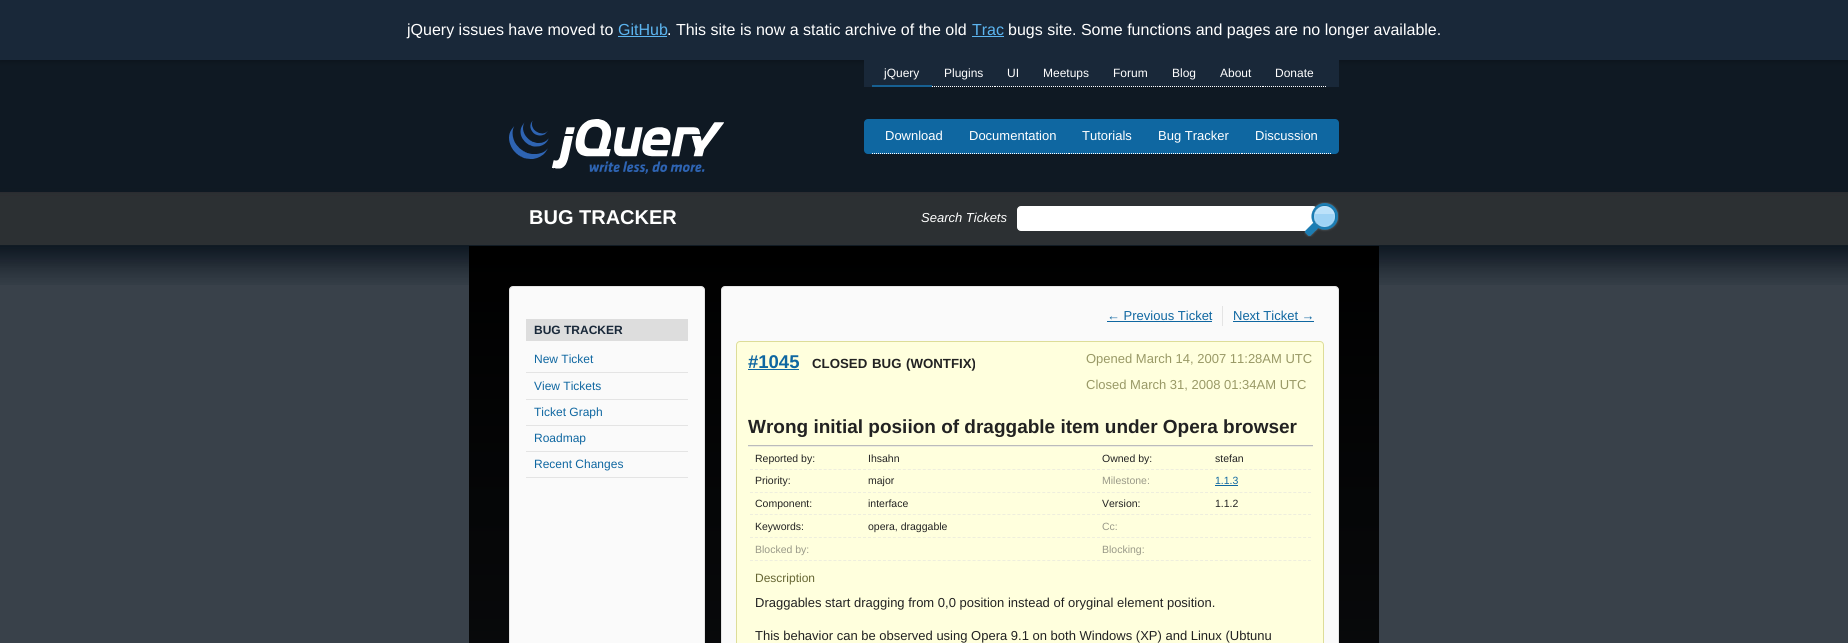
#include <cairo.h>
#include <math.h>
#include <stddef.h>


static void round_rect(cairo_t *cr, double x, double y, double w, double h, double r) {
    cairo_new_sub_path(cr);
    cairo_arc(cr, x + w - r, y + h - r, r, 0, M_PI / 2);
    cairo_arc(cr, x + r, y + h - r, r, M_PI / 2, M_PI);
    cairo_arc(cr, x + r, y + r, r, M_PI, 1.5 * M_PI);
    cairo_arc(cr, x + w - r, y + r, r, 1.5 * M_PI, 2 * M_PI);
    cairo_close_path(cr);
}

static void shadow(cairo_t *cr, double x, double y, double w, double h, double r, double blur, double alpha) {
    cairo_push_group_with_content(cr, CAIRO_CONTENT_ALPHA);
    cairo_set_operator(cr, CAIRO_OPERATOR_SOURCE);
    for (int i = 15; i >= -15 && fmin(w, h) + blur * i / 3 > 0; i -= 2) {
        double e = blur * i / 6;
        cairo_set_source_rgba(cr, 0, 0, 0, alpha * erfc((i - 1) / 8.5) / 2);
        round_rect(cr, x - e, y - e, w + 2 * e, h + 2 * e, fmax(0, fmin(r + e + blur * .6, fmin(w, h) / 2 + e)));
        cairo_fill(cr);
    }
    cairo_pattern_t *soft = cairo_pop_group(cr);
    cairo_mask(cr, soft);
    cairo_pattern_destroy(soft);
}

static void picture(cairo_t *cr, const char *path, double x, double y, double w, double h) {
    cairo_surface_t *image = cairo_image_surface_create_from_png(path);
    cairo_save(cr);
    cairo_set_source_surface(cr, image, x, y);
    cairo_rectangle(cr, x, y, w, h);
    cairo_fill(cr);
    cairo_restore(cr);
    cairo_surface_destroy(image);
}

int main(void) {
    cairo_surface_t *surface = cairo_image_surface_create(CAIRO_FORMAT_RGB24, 1848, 643);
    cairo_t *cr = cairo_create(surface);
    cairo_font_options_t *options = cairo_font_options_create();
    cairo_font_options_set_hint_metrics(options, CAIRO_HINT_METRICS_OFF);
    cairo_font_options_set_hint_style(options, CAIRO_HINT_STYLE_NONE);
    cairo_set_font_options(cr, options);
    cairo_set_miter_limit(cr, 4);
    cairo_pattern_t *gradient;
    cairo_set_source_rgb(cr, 0.224, 0.255, 0.29);
    cairo_paint(cr);
    picture(cr, "img1.png", 0, 60, 1848, 225);
    cairo_set_source_rgb(cr, 0, 0, 0);
    shadow(cr, 0, 2, 1848, 60, 0, 2.5, 0.2);
    cairo_set_source_rgb(cr, 0.098, 0.157, 0.224);
    cairo_rectangle(cr, 0, 0, 1848, 60);
    cairo_fill(cr);
    cairo_select_font_face(cr, "Liberation Sans", CAIRO_FONT_SLANT_NORMAL, CAIRO_FONT_WEIGHT_NORMAL);
    cairo_set_font_size(cr, 16);
    cairo_set_source_rgb(cr, 1, 1, 1);
    cairo_move_to(cr, 407, 35);
    cairo_show_text(cr, "jQuery issues have moved to");
    cairo_set_source_rgb(cr, 0.361, 0.71, 0.941);
    cairo_move_to(cr, 618, 35);
    cairo_show_text(cr, "GitHub");
    cairo_rectangle(cr, 618, 36, 49, 1);
    cairo_fill(cr);
    cairo_set_source_rgb(cr, 1, 1, 1);
    cairo_move_to(cr, 667, 35);
    cairo_show_text(cr, ". This site is now a static archive of the old");
    cairo_set_source_rgb(cr, 0.361, 0.71, 0.941);
    cairo_move_to(cr, 972, 35);
    cairo_show_text(cr, "Trac");
    cairo_rectangle(cr, 972, 36, 32, 1);
    cairo_fill(cr);
    cairo_set_source_rgb(cr, 1, 1, 1);
    cairo_move_to(cr, 1008, 35);
    cairo_show_text(cr, "bugs site. Some functions and pages are no longer available.");
    picture(cr, "img2.png", 509, 119, 215, 55);
    cairo_set_source_rgb(cr, 0.098, 0.157, 0.224);
    cairo_rectangle(cr, 864, 60, 475, 27);
    cairo_fill(cr);
    cairo_set_source_rgb(cr, 0.09, 0.376, 0.573);
    cairo_rectangle(cr, 872, 85, 60, 2);
    cairo_fill(cr);
    cairo_set_font_size(cr, 12);
    cairo_set_source_rgb(cr, 1, 1, 1);
    cairo_move_to(cr, 884, 77);
    cairo_show_text(cr, "jQuery");
    cairo_new_path(cr);
    cairo_move_to(cr, 932, 86.5);
    cairo_line_to(cr, 995, 86.5);
    cairo_set_line_width(cr, 1);
    cairo_set_dash(cr, (double[]){1, 1}, 2, 0);
    cairo_stroke(cr);
    cairo_move_to(cr, 944, 77);
    cairo_show_text(cr, "Plugins");
    cairo_new_path(cr);
    cairo_move_to(cr, 995, 86.5);
    cairo_line_to(cr, 1031, 86.5);
    cairo_stroke(cr);
    cairo_move_to(cr, 1007, 77);
    cairo_show_text(cr, "UI");
    cairo_new_path(cr);
    cairo_move_to(cr, 1031, 86.5);
    cairo_line_to(cr, 1101, 86.5);
    cairo_stroke(cr);
    cairo_move_to(cr, 1043, 77);
    cairo_show_text(cr, "Meetups");
    cairo_new_path(cr);
    cairo_move_to(cr, 1101, 86.5);
    cairo_line_to(cr, 1160, 86.5);
    cairo_stroke(cr);
    cairo_move_to(cr, 1113, 77);
    cairo_show_text(cr, "Forum");
    cairo_new_path(cr);
    cairo_move_to(cr, 1160, 86.5);
    cairo_line_to(cr, 1208, 86.5);
    cairo_stroke(cr);
    cairo_move_to(cr, 1172, 77);
    cairo_show_text(cr, "Blog");
    cairo_new_path(cr);
    cairo_move_to(cr, 1208, 86.5);
    cairo_line_to(cr, 1263, 86.5);
    cairo_stroke(cr);
    cairo_move_to(cr, 1220, 77);
    cairo_show_text(cr, "About");
    cairo_new_path(cr);
    cairo_move_to(cr, 1263, 86.5);
    cairo_line_to(cr, 1326, 86.5);
    cairo_stroke(cr);
    cairo_move_to(cr, 1275, 77);
    cairo_show_text(cr, "Donate");
    cairo_set_source_rgb(cr, 0.059, 0.404, 0.631);
    round_rect(cr, 864, 119, 475, 35, 4);
    cairo_fill(cr);
    cairo_new_path(cr);
    cairo_move_to(cr, 872, 153.5);
    cairo_line_to(cr, 956, 153.5);
    cairo_set_source_rgb(cr, 1, 1, 1);
    cairo_stroke(cr);
    cairo_set_font_size(cr, 13);
    cairo_move_to(cr, 885, 140);
    cairo_show_text(cr, "Download");
    cairo_new_path(cr);
    cairo_move_to(cr, 956, 153.5);
    cairo_line_to(cr, 1069, 153.5);
    cairo_stroke(cr);
    cairo_move_to(cr, 969, 140);
    cairo_show_text(cr, "Documentation");
    cairo_new_path(cr);
    cairo_move_to(cr, 1069, 153.5);
    cairo_line_to(cr, 1145, 153.5);
    cairo_stroke(cr);
    cairo_move_to(cr, 1082, 140);
    cairo_show_text(cr, "Tutorials");
    cairo_new_path(cr);
    cairo_move_to(cr, 1145, 153.5);
    cairo_line_to(cr, 1242, 153.5);
    cairo_stroke(cr);
    cairo_move_to(cr, 1158, 140);
    cairo_show_text(cr, "Bug Tracker");
    cairo_new_path(cr);
    cairo_move_to(cr, 1242, 153.5);
    cairo_line_to(cr, 1331, 153.5);
    cairo_stroke(cr);
    cairo_move_to(cr, 1255, 140);
    cairo_show_text(cr, "Discussion");
    cairo_select_font_face(cr, "Liberation Sans", CAIRO_FONT_SLANT_NORMAL, CAIRO_FONT_WEIGHT_BOLD);
    cairo_set_font_size(cr, 20);
    cairo_move_to(cr, 529, 224);
    cairo_show_text(cr, "BUG TRACKER");
    cairo_select_font_face(cr, "Liberation Sans", CAIRO_FONT_SLANT_ITALIC, CAIRO_FONT_WEIGHT_NORMAL);
    cairo_set_font_size(cr, 13);
    cairo_move_to(cr, 921, 222);
    cairo_show_text(cr, "Search Tickets");
    round_rect(cr, 1017.5, 206.5, 299, 24, 3.5);
    cairo_fill_preserve(cr);
    cairo_set_dash(cr, NULL, 0, 0);
    cairo_stroke(cr);
    picture(cr, "img3.png", 1304, 202, 35, 35);
    gradient = cairo_pattern_create_linear(924, 246, 924, 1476);
    cairo_pattern_add_color_stop_rgba(gradient, 0, 0, 0, 0, 1);
    cairo_pattern_add_color_stop_rgba(gradient, 1, 0.094, 0.11, 0.129, 1);
    cairo_set_source(cr, gradient);
    cairo_pattern_destroy(gradient);
    cairo_rectangle(cr, 469, 246, 910, 397);
    cairo_fill(cr);
    cairo_set_source_rgb(cr, 0.98, 0.98, 0.98);
    round_rect(cr, 509.5, 286.5, 195, 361, 3.5);
    cairo_fill_preserve(cr);
    cairo_set_source_rgb(cr, 0.894, 0.894, 0.894);
    cairo_stroke(cr);
    cairo_set_source_rgb(cr, 0.867, 0.867, 0.867);
    cairo_rectangle(cr, 526, 319, 162, 22);
    cairo_fill(cr);
    cairo_select_font_face(cr, "Liberation Sans", CAIRO_FONT_SLANT_NORMAL, CAIRO_FONT_WEIGHT_BOLD);
    cairo_set_font_size(cr, 12);
    cairo_set_source_rgb(cr, 0.098, 0.157, 0.224);
    cairo_move_to(cr, 534, 334);
    cairo_show_text(cr, "BUG TRACKER");
    cairo_set_source_rgb(cr, 0.894, 0.894, 0.894);
    cairo_rectangle(cr, 526, 372, 162, 1);
    cairo_fill(cr);
    cairo_select_font_face(cr, "Liberation Sans", CAIRO_FONT_SLANT_NORMAL, CAIRO_FONT_WEIGHT_NORMAL);
    cairo_set_source_rgb(cr, 0.059, 0.404, 0.631);
    cairo_move_to(cr, 534, 363);
    cairo_show_text(cr, "New Ticket");
    cairo_set_source_rgb(cr, 0.894, 0.894, 0.894);
    cairo_rectangle(cr, 526, 399, 162, 1);
    cairo_fill(cr);
    cairo_set_source_rgb(cr, 0.059, 0.404, 0.631);
    cairo_move_to(cr, 534, 390);
    cairo_show_text(cr, "View Tickets");
    cairo_set_source_rgb(cr, 0.894, 0.894, 0.894);
    cairo_rectangle(cr, 526, 425, 162, 1);
    cairo_fill(cr);
    cairo_set_source_rgb(cr, 0.059, 0.404, 0.631);
    cairo_move_to(cr, 534, 416);
    cairo_show_text(cr, "Ticket Graph");
    cairo_set_source_rgb(cr, 0.894, 0.894, 0.894);
    cairo_rectangle(cr, 526, 451, 162, 1);
    cairo_fill(cr);
    cairo_set_source_rgb(cr, 0.059, 0.404, 0.631);
    cairo_move_to(cr, 534, 442);
    cairo_show_text(cr, "Roadmap");
    cairo_set_source_rgb(cr, 0.894, 0.894, 0.894);
    cairo_rectangle(cr, 526, 477, 162, 1);
    cairo_fill(cr);
    cairo_set_source_rgb(cr, 0.059, 0.404, 0.631);
    cairo_move_to(cr, 534, 468);
    cairo_show_text(cr, "Recent Changes");
    cairo_set_source_rgb(cr, 0.98, 0.98, 0.98);
    round_rect(cr, 721.5, 286.5, 617, 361, 3.5);
    cairo_fill_preserve(cr);
    cairo_set_source_rgb(cr, 0.894, 0.894, 0.894);
    cairo_stroke(cr);
    cairo_rectangle(cr, 1222, 306, 1, 20);
    cairo_fill(cr);
    cairo_set_font_size(cr, 13);
    cairo_set_source_rgb(cr, 0.059, 0.404, 0.631);
    cairo_move_to(cr, 1107, 320);
    cairo_show_text(cr, "← Previous Ticket");
    cairo_rectangle(cr, 1107, 321, 105, 1);
    cairo_fill(cr);
    cairo_move_to(cr, 1233, 320);
    cairo_show_text(cr, "Next Ticket →");
    cairo_rectangle(cr, 1233, 321, 81, 1);
    cairo_fill(cr);
    cairo_set_source_rgb(cr, 1, 1, 0.867);
    round_rect(cr, 736.5, 341.5, 587, 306, 3.5);
    cairo_fill_preserve(cr);
    cairo_set_source_rgb(cr, 0.867, 0.867, 0.6);
    cairo_stroke(cr);
    cairo_select_font_face(cr, "Liberation Sans", CAIRO_FONT_SLANT_NORMAL, CAIRO_FONT_WEIGHT_BOLD);
    cairo_set_font_size(cr, 18.5);
    cairo_set_source_rgb(cr, 0.059, 0.404, 0.631);
    cairo_move_to(cr, 748, 368);
    cairo_show_text(cr, "#1045");
    cairo_rectangle(cr, 748, 369, 51, 1);
    cairo_fill(cr);
    cairo_set_font_size(cr, 13.25);
    cairo_set_source_rgb(cr, 0.133, 0.133, 0.133);
    cairo_move_to(cr, 812, 368);
    cairo_show_text(cr, "CLOSED");
    cairo_move_to(cr, 872, 368);
    cairo_show_text(cr, "BUG");
    cairo_move_to(cr, 906, 368);
    cairo_show_text(cr, "(WONTFIX)");
    cairo_select_font_face(cr, "Liberation Sans", CAIRO_FONT_SLANT_NORMAL, CAIRO_FONT_WEIGHT_NORMAL);
    cairo_set_font_size(cr, 13);
    cairo_set_source_rgb(cr, 0.6, 0.6, 0.4);
    cairo_move_to(cr, 1086, 363);
    cairo_show_text(cr, "Opened March 14, 2007 11:28AM UTC");
    cairo_move_to(cr, 1086, 389);
    cairo_show_text(cr, "Closed March 31, 2008 01:34AM UTC");
    cairo_set_source_rgb(cr, 0.733, 0.733, 0.733);
    cairo_rectangle(cr, 748, 445, 565, 1);
    cairo_fill(cr);
    cairo_select_font_face(cr, "Liberation Sans", CAIRO_FONT_SLANT_NORMAL, CAIRO_FONT_WEIGHT_BOLD);
    cairo_set_font_size(cr, 19);
    cairo_set_source_rgb(cr, 0.133, 0.133, 0.133);
    cairo_move_to(cr, 748, 433);
    cairo_show_text(cr, "Wrong initial posiion of draggable item under Opera browser");
    cairo_set_source_rgb(cr, 0.933, 0.933, 0.867);
    cairo_rectangle(cr, 748, 446, 565, 1);
    cairo_fill(cr);
    cairo_new_path(cr);
    cairo_move_to(cr, 750, 469.5);
    cairo_line_to(cr, 861, 469.5);
    cairo_set_dash(cr, (double[]){3, 1.91}, 2, 0);
    cairo_stroke(cr);
    cairo_select_font_face(cr, "Liberation Sans", CAIRO_FONT_SLANT_NORMAL, CAIRO_FONT_WEIGHT_NORMAL);
    cairo_set_font_size(cr, 10.5);
    cairo_set_source_rgb(cr, 0.133, 0.133, 0.133);
    cairo_move_to(cr, 755, 462);
    cairo_show_text(cr, "Reported by:");
    cairo_new_path(cr);
    cairo_move_to(cr, 863, 469.5);
    cairo_line_to(cr, 1095, 469.5);
    cairo_set_source_rgb(cr, 0.933, 0.933, 0.867);
    cairo_set_dash(cr, (double[]){3, 1.98}, 2, 0);
    cairo_stroke(cr);
    cairo_set_source_rgb(cr, 0.133, 0.133, 0.133);
    cairo_move_to(cr, 868, 462);
    cairo_show_text(cr, "Ihsahn");
    cairo_new_path(cr);
    cairo_move_to(cr, 1097, 469.5);
    cairo_line_to(cr, 1208, 469.5);
    cairo_set_source_rgb(cr, 0.933, 0.933, 0.867);
    cairo_set_dash(cr, (double[]){3, 1.91}, 2, 0);
    cairo_stroke(cr);
    cairo_set_source_rgb(cr, 0.133, 0.133, 0.133);
    cairo_move_to(cr, 1102, 462);
    cairo_show_text(cr, "Owned by:");
    cairo_new_path(cr);
    cairo_move_to(cr, 1210, 469.5);
    cairo_line_to(cr, 1311, 469.5);
    cairo_set_source_rgb(cr, 0.933, 0.933, 0.867);
    cairo_set_dash(cr, (double[]){3, 1.9}, 2, 0);
    cairo_stroke(cr);
    cairo_set_source_rgb(cr, 0.133, 0.133, 0.133);
    cairo_move_to(cr, 1215, 462);
    cairo_show_text(cr, "stefan");
    cairo_new_path(cr);
    cairo_move_to(cr, 750, 492.5);
    cairo_line_to(cr, 861, 492.5);
    cairo_set_source_rgb(cr, 0.933, 0.933, 0.867);
    cairo_set_dash(cr, (double[]){3, 1.91}, 2, 0);
    cairo_stroke(cr);
    cairo_set_source_rgb(cr, 0.133, 0.133, 0.133);
    cairo_move_to(cr, 755, 484);
    cairo_show_text(cr, "Priority:");
    cairo_new_path(cr);
    cairo_move_to(cr, 863, 492.5);
    cairo_line_to(cr, 1095, 492.5);
    cairo_set_source_rgb(cr, 0.933, 0.933, 0.867);
    cairo_set_dash(cr, (double[]){3, 1.98}, 2, 0);
    cairo_stroke(cr);
    cairo_set_source_rgb(cr, 0.133, 0.133, 0.133);
    cairo_move_to(cr, 868, 484);
    cairo_show_text(cr, "major");
    cairo_new_path(cr);
    cairo_move_to(cr, 1097, 492.5);
    cairo_line_to(cr, 1208, 492.5);
    cairo_set_source_rgb(cr, 0.933, 0.933, 0.867);
    cairo_set_dash(cr, (double[]){3, 1.91}, 2, 0);
    cairo_stroke(cr);
    cairo_set_source_rgb(cr, 0.6, 0.6, 0.533);
    cairo_move_to(cr, 1102, 484);
    cairo_show_text(cr, "Milestone:");
    cairo_new_path(cr);
    cairo_move_to(cr, 1210, 492.5);
    cairo_line_to(cr, 1311, 492.5);
    cairo_set_source_rgb(cr, 0.933, 0.933, 0.867);
    cairo_set_dash(cr, (double[]){3, 1.9}, 2, 0);
    cairo_stroke(cr);
    cairo_set_source_rgb(cr, 0.059, 0.404, 0.631);
    cairo_move_to(cr, 1215, 484);
    cairo_show_text(cr, "1.1.3");
    cairo_rectangle(cr, 1215, 485, 23, 1);
    cairo_fill(cr);
    cairo_new_path(cr);
    cairo_move_to(cr, 750, 514.5);
    cairo_line_to(cr, 861, 514.5);
    cairo_set_source_rgb(cr, 0.933, 0.933, 0.867);
    cairo_set_dash(cr, (double[]){3, 1.91}, 2, 0);
    cairo_stroke(cr);
    cairo_set_source_rgb(cr, 0.133, 0.133, 0.133);
    cairo_move_to(cr, 755, 507);
    cairo_show_text(cr, "Component:");
    cairo_new_path(cr);
    cairo_move_to(cr, 863, 514.5);
    cairo_line_to(cr, 1095, 514.5);
    cairo_set_source_rgb(cr, 0.933, 0.933, 0.867);
    cairo_set_dash(cr, (double[]){3, 1.98}, 2, 0);
    cairo_stroke(cr);
    cairo_set_source_rgb(cr, 0.133, 0.133, 0.133);
    cairo_move_to(cr, 868, 507);
    cairo_show_text(cr, "interface");
    cairo_new_path(cr);
    cairo_move_to(cr, 1097, 514.5);
    cairo_line_to(cr, 1208, 514.5);
    cairo_set_source_rgb(cr, 0.933, 0.933, 0.867);
    cairo_set_dash(cr, (double[]){3, 1.91}, 2, 0);
    cairo_stroke(cr);
    cairo_set_source_rgb(cr, 0.133, 0.133, 0.133);
    cairo_move_to(cr, 1102, 507);
    cairo_show_text(cr, "Version:");
    cairo_new_path(cr);
    cairo_move_to(cr, 1210, 514.5);
    cairo_line_to(cr, 1311, 514.5);
    cairo_set_source_rgb(cr, 0.933, 0.933, 0.867);
    cairo_set_dash(cr, (double[]){3, 1.9}, 2, 0);
    cairo_stroke(cr);
    cairo_set_source_rgb(cr, 0.133, 0.133, 0.133);
    cairo_move_to(cr, 1215, 507);
    cairo_show_text(cr, "1.1.2");
    cairo_new_path(cr);
    cairo_move_to(cr, 750, 537.5);
    cairo_line_to(cr, 861, 537.5);
    cairo_set_source_rgb(cr, 0.933, 0.933, 0.867);
    cairo_set_dash(cr, (double[]){3, 1.91}, 2, 0);
    cairo_stroke(cr);
    cairo_set_source_rgb(cr, 0.133, 0.133, 0.133);
    cairo_move_to(cr, 755, 530);
    cairo_show_text(cr, "Keywords:");
    cairo_new_path(cr);
    cairo_move_to(cr, 863, 537.5);
    cairo_line_to(cr, 1095, 537.5);
    cairo_set_source_rgb(cr, 0.933, 0.933, 0.867);
    cairo_set_dash(cr, (double[]){3, 1.98}, 2, 0);
    cairo_stroke(cr);
    cairo_set_source_rgb(cr, 0.133, 0.133, 0.133);
    cairo_move_to(cr, 868, 530);
    cairo_show_text(cr, "opera, draggable");
    cairo_new_path(cr);
    cairo_move_to(cr, 1097, 537.5);
    cairo_line_to(cr, 1208, 537.5);
    cairo_set_source_rgb(cr, 0.933, 0.933, 0.867);
    cairo_set_dash(cr, (double[]){3, 1.91}, 2, 0);
    cairo_stroke(cr);
    cairo_set_source_rgb(cr, 0.6, 0.6, 0.533);
    cairo_move_to(cr, 1102, 530);
    cairo_show_text(cr, "Cc:");
    cairo_new_path(cr);
    cairo_move_to(cr, 1210, 537.5);
    cairo_line_to(cr, 1311, 537.5);
    cairo_set_source_rgb(cr, 0.933, 0.933, 0.867);
    cairo_set_dash(cr, (double[]){3, 1.9}, 2, 0);
    cairo_stroke(cr);
    cairo_new_path(cr);
    cairo_move_to(cr, 750, 560.5);
    cairo_line_to(cr, 861, 560.5);
    cairo_set_dash(cr, (double[]){3, 1.91}, 2, 0);
    cairo_stroke(cr);
    cairo_set_source_rgb(cr, 0.6, 0.6, 0.533);
    cairo_move_to(cr, 755, 553);
    cairo_show_text(cr, "Blocked by:");
    cairo_new_path(cr);
    cairo_move_to(cr, 1097, 560.5);
    cairo_line_to(cr, 1208, 560.5);
    cairo_set_source_rgb(cr, 0.933, 0.933, 0.867);
    cairo_stroke(cr);
    cairo_set_source_rgb(cr, 0.6, 0.6, 0.533);
    cairo_move_to(cr, 1102, 553);
    cairo_show_text(cr, "Blocking:");
    cairo_new_path(cr);
    cairo_move_to(cr, 863, 560.5);
    cairo_line_to(cr, 1095, 560.5);
    cairo_set_source_rgb(cr, 0.933, 0.933, 0.867);
    cairo_set_dash(cr, (double[]){3, 1.98}, 2, 0);
    cairo_stroke(cr);
    cairo_new_path(cr);
    cairo_move_to(cr, 1210, 560.5);
    cairo_line_to(cr, 1311, 560.5);
    cairo_set_dash(cr, (double[]){3, 1.9}, 2, 0);
    cairo_stroke(cr);
    cairo_set_font_size(cr, 12);
    cairo_set_source_rgb(cr, 0.4, 0.4, 0.2);
    cairo_move_to(cr, 755, 582);
    cairo_show_text(cr, "Description");
    cairo_set_font_size(cr, 13);
    cairo_set_source_rgb(cr, 0.133, 0.133, 0.133);
    cairo_move_to(cr, 755, 607);
    cairo_show_text(cr, "Draggables start dragging from 0,0 position instead of oryginal element position.");
    cairo_move_to(cr, 755, 640);
    cairo_show_text(cr, "This behavior can be observed using Opera 9.1 on both Windows (XP) and Linux (Ubtunu");
    cairo_surface_write_to_png(surface, "page.png");
    cairo_font_options_destroy(options);
    cairo_destroy(cr);
    cairo_surface_destroy(surface);
    return 0;
}
